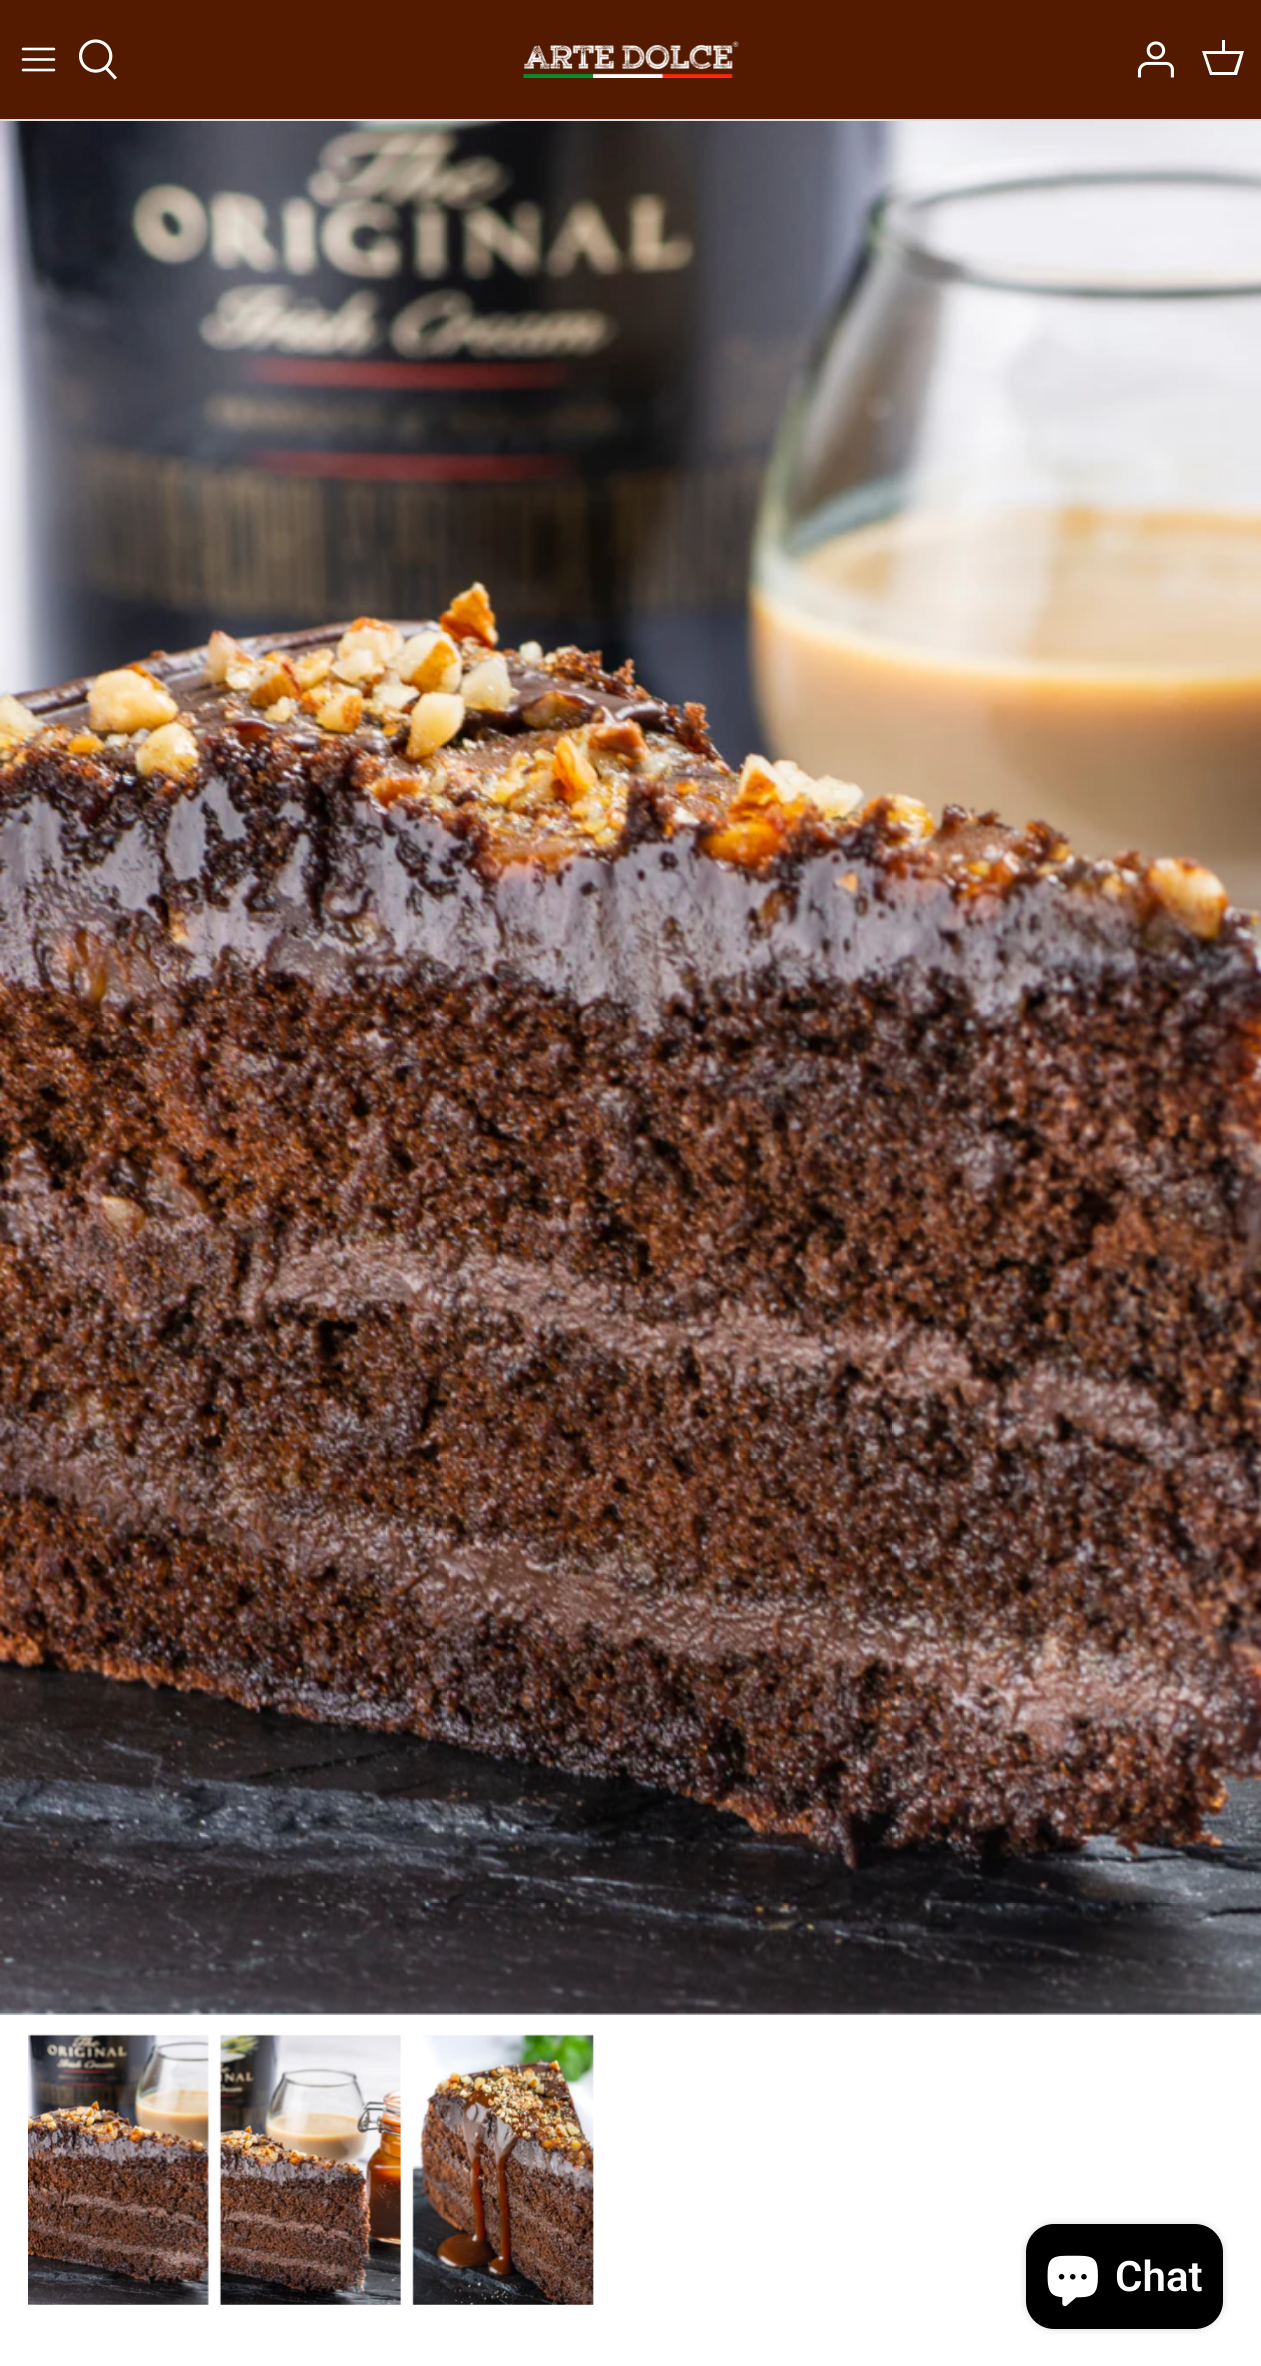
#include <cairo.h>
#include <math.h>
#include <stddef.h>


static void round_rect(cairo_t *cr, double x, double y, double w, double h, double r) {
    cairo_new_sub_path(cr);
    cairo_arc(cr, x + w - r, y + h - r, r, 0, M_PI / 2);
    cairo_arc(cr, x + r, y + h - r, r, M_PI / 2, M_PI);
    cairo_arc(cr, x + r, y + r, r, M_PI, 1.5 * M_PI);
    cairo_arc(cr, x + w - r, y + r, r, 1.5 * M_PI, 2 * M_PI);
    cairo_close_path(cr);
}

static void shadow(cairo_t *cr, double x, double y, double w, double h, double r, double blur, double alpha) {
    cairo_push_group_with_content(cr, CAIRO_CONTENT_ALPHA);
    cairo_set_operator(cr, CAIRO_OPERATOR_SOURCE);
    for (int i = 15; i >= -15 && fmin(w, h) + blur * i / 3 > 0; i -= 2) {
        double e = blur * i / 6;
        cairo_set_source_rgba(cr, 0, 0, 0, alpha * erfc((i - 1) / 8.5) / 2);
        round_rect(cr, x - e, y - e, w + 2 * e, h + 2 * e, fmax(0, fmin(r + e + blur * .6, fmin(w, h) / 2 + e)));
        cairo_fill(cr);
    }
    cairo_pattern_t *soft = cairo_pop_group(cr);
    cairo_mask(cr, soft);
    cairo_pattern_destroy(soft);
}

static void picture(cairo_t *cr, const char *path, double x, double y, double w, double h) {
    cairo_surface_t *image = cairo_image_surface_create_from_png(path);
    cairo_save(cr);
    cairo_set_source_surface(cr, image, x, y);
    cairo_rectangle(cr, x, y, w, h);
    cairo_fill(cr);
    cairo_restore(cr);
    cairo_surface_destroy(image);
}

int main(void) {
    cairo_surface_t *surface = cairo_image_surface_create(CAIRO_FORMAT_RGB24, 1261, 2366);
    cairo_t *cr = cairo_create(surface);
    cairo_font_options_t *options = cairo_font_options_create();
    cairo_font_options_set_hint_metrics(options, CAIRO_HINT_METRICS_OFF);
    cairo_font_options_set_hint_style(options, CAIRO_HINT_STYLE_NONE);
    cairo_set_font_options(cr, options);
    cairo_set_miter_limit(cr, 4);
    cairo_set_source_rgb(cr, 1, 1, 1);
    cairo_paint(cr);
    cairo_set_source_rgb(cr, 0.325, 0.102, 0);
    cairo_rectangle(cr, 0, 0, 1261, 119);
    cairo_fill(cr);
    cairo_set_source_rgb(cr, 0.875, 0.89, 0.91);
    cairo_rectangle(cr, 0, 119, 1261, 2);
    cairo_fill(cr);
    cairo_new_path(cr);
    cairo_move_to(cr, 23, 59.5);
    cairo_line_to(cr, 54, 59.5);
    cairo_move_to(cr, 23, 49);
    cairo_line_to(cr, 54, 49);
    cairo_move_to(cr, 23, 70);
    cairo_line_to(cr, 54, 70);
    cairo_set_source_rgb(cr, 1, 1, 1);
    cairo_set_line_width(cr, 2.6);
    cairo_set_line_cap(cr, CAIRO_LINE_CAP_ROUND);
    cairo_set_line_join(cr, CAIRO_LINE_JOIN_ROUND);
    cairo_stroke(cr);
    picture(cr, "img1.png", 79, 39, 38, 41);
    picture(cr, "img2.png", 523, 41, 216, 37);
    picture(cr, "img3.png", 1137, 41, 37, 37);
    cairo_new_path(cr);
    cairo_move_to(cr, 1222, 51);
    cairo_line_to(cr, 1222, 40);
    cairo_line_to(cr, 1225, 40);
    cairo_line_to(cr, 1225, 51);
    cairo_line_to(cr, 1244, 51);
    cairo_line_to(cr, 1237, 75);
    cairo_line_to(cr, 1210, 75);
    cairo_line_to(cr, 1202, 51);
    cairo_close_path(cr);
    cairo_move_to(cr, 1206, 54);
    cairo_line_to(cr, 1212, 72);
    cairo_line_to(cr, 1234, 72);
    cairo_line_to(cr, 1240, 54);
    cairo_close_path(cr);
    cairo_fill(cr);
    picture(cr, "img4.png", 0, 121, 1261, 1894);
    picture(cr, "img5.png", 28, 2034, 181, 271);
    picture(cr, "img6.png", 219, 2034, 182, 271);
    picture(cr, "img7.png", 412, 2034, 182, 271);
    cairo_set_source_rgb(cr, 0, 0, 0);
    shadow(cr, 1026, 2224, 197, 105, 28, 4.5, 0.15);
    cairo_set_source_rgb(cr, 0, 0, 0);
    round_rect(cr, 1026, 2224, 197, 105, 28);
    cairo_fill(cr);
    picture(cr, "img8.png", 1047, 2255, 51, 52);
    cairo_select_font_face(cr, "Roboto SemiBold", CAIRO_FONT_SLANT_NORMAL, CAIRO_FONT_WEIGHT_NORMAL);
    cairo_set_font_size(cr, 42);
    cairo_set_source_rgb(cr, 1, 1, 1);
    cairo_move_to(cr, 1115, 2291);
    cairo_show_text(cr, "Chat");
    cairo_surface_write_to_png(surface, "page.png");
    cairo_font_options_destroy(options);
    cairo_destroy(cr);
    cairo_surface_destroy(surface);
    return 0;
}
